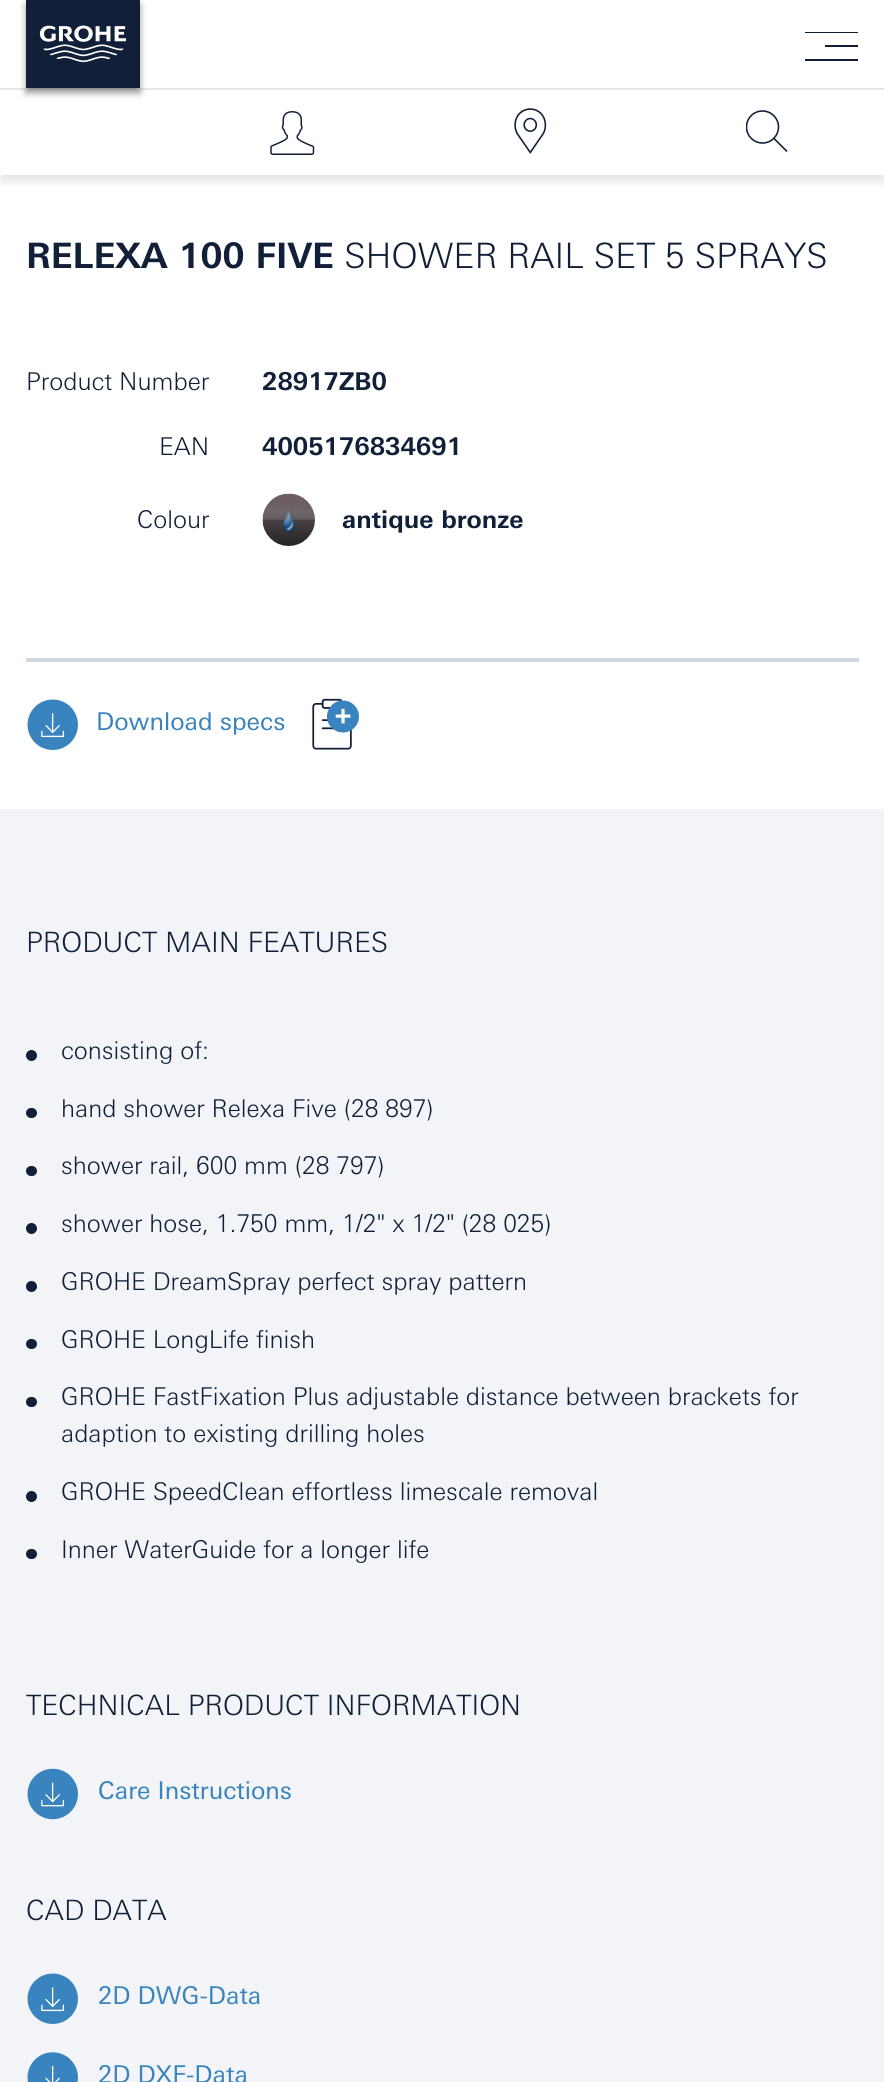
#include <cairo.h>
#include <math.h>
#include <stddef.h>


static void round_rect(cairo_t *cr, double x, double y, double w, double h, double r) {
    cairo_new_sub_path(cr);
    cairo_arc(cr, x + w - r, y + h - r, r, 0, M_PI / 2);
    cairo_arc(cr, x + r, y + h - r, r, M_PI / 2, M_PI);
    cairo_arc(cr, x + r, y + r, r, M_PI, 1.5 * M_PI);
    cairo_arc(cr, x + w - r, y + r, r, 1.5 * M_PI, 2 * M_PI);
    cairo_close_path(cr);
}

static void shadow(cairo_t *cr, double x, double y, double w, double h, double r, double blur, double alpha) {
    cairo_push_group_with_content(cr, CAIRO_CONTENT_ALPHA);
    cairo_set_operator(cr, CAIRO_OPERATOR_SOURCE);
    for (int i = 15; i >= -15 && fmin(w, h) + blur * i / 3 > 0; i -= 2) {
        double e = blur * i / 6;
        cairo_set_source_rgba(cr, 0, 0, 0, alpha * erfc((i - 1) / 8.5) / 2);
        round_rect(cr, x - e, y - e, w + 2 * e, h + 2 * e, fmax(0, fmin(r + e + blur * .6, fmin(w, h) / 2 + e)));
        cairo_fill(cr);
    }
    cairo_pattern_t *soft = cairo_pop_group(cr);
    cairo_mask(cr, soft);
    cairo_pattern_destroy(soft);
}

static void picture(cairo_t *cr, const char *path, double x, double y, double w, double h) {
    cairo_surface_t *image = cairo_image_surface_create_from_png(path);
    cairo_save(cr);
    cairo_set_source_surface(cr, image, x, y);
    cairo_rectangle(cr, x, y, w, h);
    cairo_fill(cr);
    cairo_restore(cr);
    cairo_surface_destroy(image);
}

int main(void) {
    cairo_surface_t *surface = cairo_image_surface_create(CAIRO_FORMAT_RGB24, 884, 2082);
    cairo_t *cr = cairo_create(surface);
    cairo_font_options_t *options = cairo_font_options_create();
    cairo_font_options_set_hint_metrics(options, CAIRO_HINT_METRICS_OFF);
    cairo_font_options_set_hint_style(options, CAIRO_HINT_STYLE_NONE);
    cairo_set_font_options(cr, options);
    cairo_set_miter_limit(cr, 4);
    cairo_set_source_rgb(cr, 1, 1, 1);
    cairo_paint(cr);
    cairo_set_source_rgb(cr, 0, 0, 0);
    shadow(cr, 0, 95, 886, 87, 0, 4.5, 0.1);
    cairo_set_source_rgb(cr, 1, 1, 1);
    cairo_rectangle(cr, 0, 90, 884, 85);
    cairo_fill(cr);
    cairo_set_source_rgb(cr, 0.902, 0.902, 0.902);
    cairo_rectangle(cr, 0, 88, 884, 2);
    cairo_fill(cr);
    cairo_set_source_rgb(cr, 0, 0, 0);
    shadow(cr, 26, 5, 114, 88, 0, 3.5, 0.4);
    cairo_set_source_rgb(cr, 0.067, 0.125, 0.22);
    cairo_rectangle(cr, 26, 0, 114, 88);
    cairo_fill(cr);
    picture(cr, "img1.png", 39, 25, 87, 38);
    cairo_new_path(cr);
    cairo_move_to(cr, 805, 32);
    cairo_line_to(cr, 858, 32);
    cairo_line_to(cr, 858, 33);
    cairo_line_to(cr, 805, 33);
    cairo_close_path(cr);
    cairo_move_to(cr, 825, 45);
    cairo_line_to(cr, 858, 45);
    cairo_line_to(cr, 858, 47);
    cairo_line_to(cr, 825, 47);
    cairo_close_path(cr);
    cairo_move_to(cr, 805, 59);
    cairo_line_to(cr, 858, 59);
    cairo_line_to(cr, 858, 61);
    cairo_line_to(cr, 805, 61);
    cairo_close_path(cr);
    cairo_fill(cr);
    picture(cr, "img2.png", 270, 111, 45, 44);
    picture(cr, "img3.png", 514, 108, 33, 46);
    cairo_new_path(cr);
    cairo_move_to(cr, 787, 151.5);
    cairo_line_to(cr, 773.5, 138);
    cairo_close_path(cr);
    cairo_set_line_width(cr, 1.6);
    cairo_stroke(cr);
    cairo_save(cr);
    cairo_rectangle(cr, 746, 110, 42, 42);
    cairo_clip(cr);
    cairo_arc(cr, 762.5, 127, 16, 0, 2 * M_PI);
    cairo_stroke(cr);
    cairo_restore(cr);
    cairo_select_font_face(cr, "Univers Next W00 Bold", CAIRO_FONT_SLANT_NORMAL, CAIRO_FONT_WEIGHT_BOLD);
    cairo_set_font_size(cr, 35);
    cairo_move_to(cr, 26, 268);
    cairo_show_text(cr, "RELEXA 100 FIVE");
    cairo_select_font_face(cr, "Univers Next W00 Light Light", CAIRO_FONT_SLANT_NORMAL, CAIRO_FONT_WEIGHT_NORMAL);
    cairo_move_to(cr, 344, 268);
    cairo_show_text(cr, "SHOWER RAIL SET 5 SPRAYS");
    cairo_set_font_size(cr, 24.5);
    cairo_move_to(cr, 26, 390);
    cairo_show_text(cr, "Product Number");
    cairo_select_font_face(cr, "Univers Next W00 Bold", CAIRO_FONT_SLANT_NORMAL, CAIRO_FONT_WEIGHT_BOLD);
    cairo_move_to(cr, 262, 390);
    cairo_show_text(cr, "28917ZB0");
    cairo_select_font_face(cr, "Univers Next W00 Light Light", CAIRO_FONT_SLANT_NORMAL, CAIRO_FONT_WEIGHT_NORMAL);
    cairo_move_to(cr, 159, 455);
    cairo_show_text(cr, "EAN");
    cairo_select_font_face(cr, "Univers Next W00 Bold", CAIRO_FONT_SLANT_NORMAL, CAIRO_FONT_WEIGHT_BOLD);
    cairo_move_to(cr, 262, 455);
    cairo_show_text(cr, "4005176834691");
    cairo_select_font_face(cr, "Univers Next W00 Light Light", CAIRO_FONT_SLANT_NORMAL, CAIRO_FONT_WEIGHT_NORMAL);
    cairo_move_to(cr, 137, 528);
    cairo_show_text(cr, "Colour");
    picture(cr, "img4.png", 262, 493, 53, 53);
    cairo_select_font_face(cr, "Univers Next W00 Bold", CAIRO_FONT_SLANT_NORMAL, CAIRO_FONT_WEIGHT_BOLD);
    cairo_move_to(cr, 342, 528);
    cairo_show_text(cr, "antique bronze");
    cairo_set_source_rgb(cr, 0.82, 0.847, 0.875);
    cairo_rectangle(cr, 26, 658, 833, 4);
    cairo_fill(cr);
    picture(cr, "img5.png", 27, 699, 51, 51);
    cairo_select_font_face(cr, "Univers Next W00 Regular", CAIRO_FONT_SLANT_NORMAL, CAIRO_FONT_WEIGHT_NORMAL);
    cairo_set_source_rgb(cr, 0.224, 0.518, 0.745);
    cairo_move_to(cr, 96, 730);
    cairo_show_text(cr, "Download specs");
    picture(cr, "img6.png", 312, 698, 47, 52);
    cairo_set_source_rgb(cr, 0.949, 0.957, 0.965);
    cairo_rectangle(cr, 0, 809, 884, 1273);
    cairo_fill(cr);
    cairo_select_font_face(cr, "Univers Next W00 Light Light", CAIRO_FONT_SLANT_NORMAL, CAIRO_FONT_WEIGHT_NORMAL);
    cairo_set_font_size(cr, 28);
    cairo_set_source_rgb(cr, 0.067, 0.125, 0.22);
    cairo_move_to(cr, 26, 952);
    cairo_show_text(cr, "PRODUCT MAIN FEATURES");
    cairo_new_path(cr);
    cairo_arc(cr, 31.5, 1055.5, 5.5, 0, 2 * M_PI);
    cairo_fill(cr);
    cairo_set_font_size(cr, 24.5);
    cairo_move_to(cr, 61, 1059);
    cairo_show_text(cr, "consisting of:");
    round_rect(cr, 26, 1108, 11, 10, 5);
    cairo_fill(cr);
    cairo_move_to(cr, 61, 1117);
    cairo_show_text(cr, "hand shower Relexa Five (28 897)");
    round_rect(cr, 26, 1166, 11, 10, 5);
    cairo_fill(cr);
    cairo_move_to(cr, 61, 1174);
    cairo_show_text(cr, "shower rail, 600 mm (28 797)");
    cairo_new_path(cr);
    cairo_arc(cr, 31.5, 1228.5, 5.5, 0, 2 * M_PI);
    cairo_fill(cr);
    cairo_move_to(cr, 61, 1232);
    cairo_show_text(cr, "shower hose, 1.750 mm, 1/2\" x 1/2\" (28 025)");
    cairo_new_path(cr);
    cairo_arc(cr, 31.5, 1286.5, 5.5, 0, 2 * M_PI);
    cairo_fill(cr);
    cairo_move_to(cr, 61, 1290);
    cairo_show_text(cr, "GROHE DreamSpray perfect spray pattern");
    round_rect(cr, 26, 1339, 11, 10, 5);
    cairo_fill(cr);
    cairo_move_to(cr, 61, 1348);
    cairo_show_text(cr, "GROHE LongLife finish");
    round_rect(cr, 26, 1397, 11, 10, 5);
    cairo_fill(cr);
    cairo_move_to(cr, 61, 1405);
    cairo_show_text(cr, "GROHE FastFixation Plus adjustable distance between brackets for");
    cairo_move_to(cr, 61, 1442);
    cairo_show_text(cr, "adaption to existing drilling holes");
    cairo_new_path(cr);
    cairo_arc(cr, 31.5, 1496.5, 5.5, 0, 2 * M_PI);
    cairo_fill(cr);
    cairo_move_to(cr, 61, 1500);
    cairo_show_text(cr, "GROHE SpeedClean effortless limescale removal");
    round_rect(cr, 26, 1549, 11, 10, 5);
    cairo_fill(cr);
    cairo_move_to(cr, 61, 1558);
    cairo_show_text(cr, "Inner WaterGuide for a longer life");
    cairo_set_font_size(cr, 28);
    cairo_move_to(cr, 26, 1715);
    cairo_show_text(cr, "TECHNICAL PRODUCT INFORMATION");
    picture(cr, "img7.png", 27, 1768, 51, 52);
    cairo_select_font_face(cr, "Univers Next W00 Regular", CAIRO_FONT_SLANT_NORMAL, CAIRO_FONT_WEIGHT_NORMAL);
    cairo_set_font_size(cr, 24.5);
    cairo_set_source_rgb(cr, 0.224, 0.518, 0.745);
    cairo_move_to(cr, 98, 1799);
    cairo_show_text(cr, "Care Instructions");
    cairo_select_font_face(cr, "Univers Next W00 Light Light", CAIRO_FONT_SLANT_NORMAL, CAIRO_FONT_WEIGHT_NORMAL);
    cairo_set_font_size(cr, 28);
    cairo_set_source_rgb(cr, 0.067, 0.125, 0.22);
    cairo_move_to(cr, 26, 1920);
    cairo_show_text(cr, "CAD DATA");
    picture(cr, "img8.png", 27, 1973, 51, 51);
    cairo_select_font_face(cr, "Univers Next W00 Regular", CAIRO_FONT_SLANT_NORMAL, CAIRO_FONT_WEIGHT_NORMAL);
    cairo_set_font_size(cr, 24.5);
    cairo_set_source_rgb(cr, 0.224, 0.518, 0.745);
    cairo_move_to(cr, 98, 2004);
    cairo_show_text(cr, "2D DWG-Data");
    picture(cr, "img9.png", 27, 2052, 51, 30);
    cairo_move_to(cr, 98, 2083);
    cairo_show_text(cr, "2D DXF-Data");
    cairo_surface_write_to_png(surface, "page.png");
    cairo_font_options_destroy(options);
    cairo_destroy(cr);
    cairo_surface_destroy(surface);
    return 0;
}
